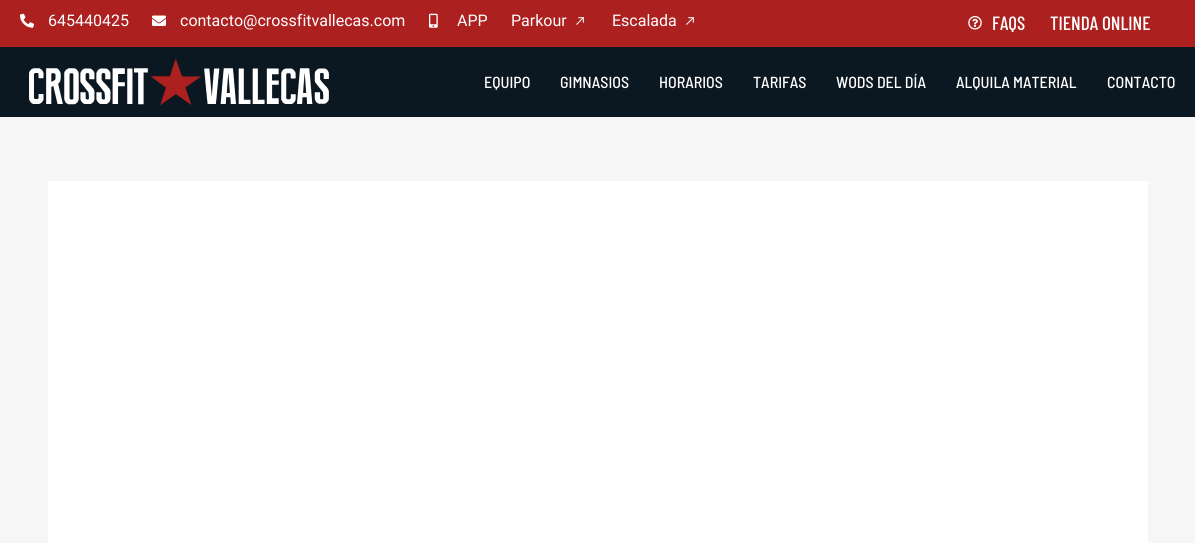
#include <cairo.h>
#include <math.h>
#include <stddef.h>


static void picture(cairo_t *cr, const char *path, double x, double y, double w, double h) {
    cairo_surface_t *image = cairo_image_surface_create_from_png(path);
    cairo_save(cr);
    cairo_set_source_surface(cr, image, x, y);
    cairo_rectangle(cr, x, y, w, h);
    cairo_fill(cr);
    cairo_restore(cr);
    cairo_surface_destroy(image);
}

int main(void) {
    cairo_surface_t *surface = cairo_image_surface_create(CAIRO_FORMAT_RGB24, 1195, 543);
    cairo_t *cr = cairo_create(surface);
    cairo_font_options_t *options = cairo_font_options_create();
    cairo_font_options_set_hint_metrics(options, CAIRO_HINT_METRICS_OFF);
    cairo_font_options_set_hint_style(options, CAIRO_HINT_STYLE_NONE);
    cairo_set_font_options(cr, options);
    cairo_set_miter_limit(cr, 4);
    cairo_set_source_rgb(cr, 0.961, 0.961, 0.961);
    cairo_paint(cr);
    cairo_set_source_rgb(cr, 0.675, 0.125, 0.122);
    cairo_rectangle(cr, 0, 0, 1195, 47);
    cairo_fill(cr);
    picture(cr, "img1.png", 20, 13, 14, 15);
    cairo_select_font_face(cr, "Roboto", CAIRO_FONT_SLANT_NORMAL, CAIRO_FONT_WEIGHT_NORMAL);
    cairo_set_font_size(cr, 16);
    cairo_set_source_rgb(cr, 1, 1, 1);
    cairo_move_to(cr, 48, 26);
    cairo_show_text(cr, "645440425");
    picture(cr, "img2.png", 152, 15, 14, 11);
    cairo_move_to(cr, 180, 26);
    cairo_show_text(cr, "contacto@crossfitvallecas.com");
    picture(cr, "img3.png", 429, 13, 9, 15);
    cairo_move_to(cr, 457, 26);
    cairo_show_text(cr, "APP");
    cairo_move_to(cr, 511, 26);
    cairo_show_text(cr, "Parkour");
    picture(cr, "img4.png", 576, 17, 8, 8);
    cairo_move_to(cr, 612, 26);
    cairo_show_text(cr, "Escalada");
    picture(cr, "img4.png", 686, 17, 8, 8);
    picture(cr, "img5.png", 968, 16, 14, 14);
    cairo_select_font_face(cr, "Barlow Condensed Medium", CAIRO_FONT_SLANT_NORMAL, CAIRO_FONT_WEIGHT_NORMAL);
    cairo_set_font_size(cr, 19.25);
    cairo_move_to(cr, 992, 30);
    cairo_show_text(cr, "FAQS");
    cairo_move_to(cr, 1050, 30);
    cairo_show_text(cr, "TIENDA ONLINE");
    cairo_set_source_rgb(cr, 0.043, 0.094, 0.133);
    cairo_rectangle(cr, 0, 47, 1195, 70);
    cairo_fill(cr);
    picture(cr, "img6.png", 29, 59, 300, 46);
    cairo_select_font_face(cr, "Barlow Semi Condensed Medium", CAIRO_FONT_SLANT_NORMAL, CAIRO_FONT_WEIGHT_NORMAL);
    cairo_set_font_size(cr, 16);
    cairo_set_source_rgb(cr, 1, 1, 1);
    cairo_move_to(cr, 484, 88);
    cairo_show_text(cr, "EQUIPO");
    cairo_move_to(cr, 560, 88);
    cairo_show_text(cr, "GIMNASIOS");
    cairo_move_to(cr, 659, 88);
    cairo_show_text(cr, "HORARIOS");
    cairo_move_to(cr, 753, 88);
    cairo_show_text(cr, "TARIFAS");
    cairo_move_to(cr, 836, 88);
    cairo_show_text(cr, "WODS DEL DÍA");
    cairo_move_to(cr, 956, 88);
    cairo_show_text(cr, "ALQUILA MATERIAL");
    cairo_move_to(cr, 1107, 88);
    cairo_show_text(cr, "CONTACTO");
    cairo_rectangle(cr, 48, 181, 1100, 362);
    cairo_fill(cr);
    cairo_surface_write_to_png(surface, "page.png");
    cairo_font_options_destroy(options);
    cairo_destroy(cr);
    cairo_surface_destroy(surface);
    return 0;
}
